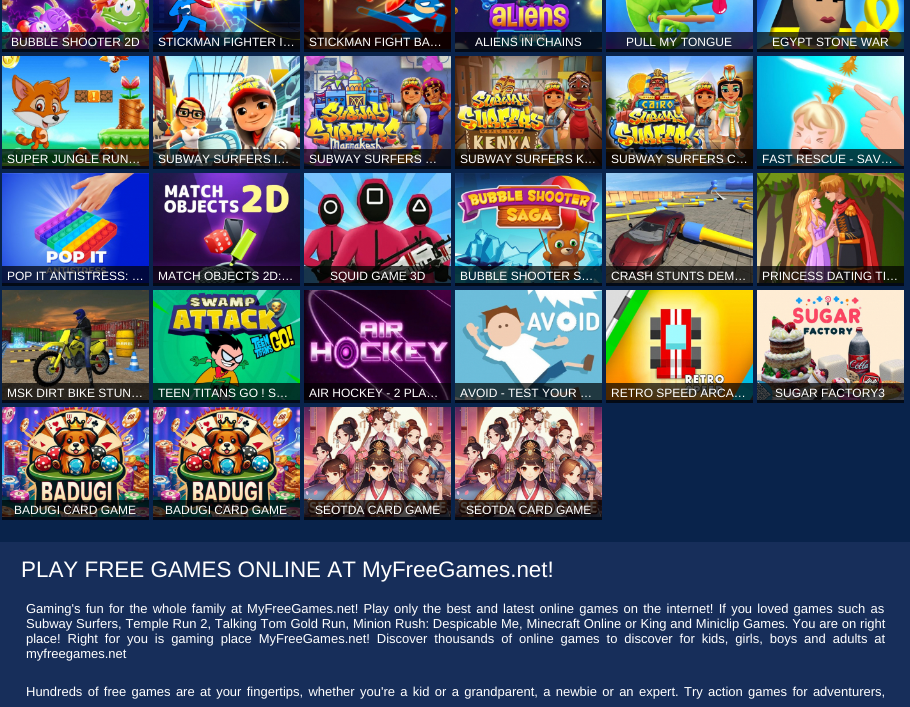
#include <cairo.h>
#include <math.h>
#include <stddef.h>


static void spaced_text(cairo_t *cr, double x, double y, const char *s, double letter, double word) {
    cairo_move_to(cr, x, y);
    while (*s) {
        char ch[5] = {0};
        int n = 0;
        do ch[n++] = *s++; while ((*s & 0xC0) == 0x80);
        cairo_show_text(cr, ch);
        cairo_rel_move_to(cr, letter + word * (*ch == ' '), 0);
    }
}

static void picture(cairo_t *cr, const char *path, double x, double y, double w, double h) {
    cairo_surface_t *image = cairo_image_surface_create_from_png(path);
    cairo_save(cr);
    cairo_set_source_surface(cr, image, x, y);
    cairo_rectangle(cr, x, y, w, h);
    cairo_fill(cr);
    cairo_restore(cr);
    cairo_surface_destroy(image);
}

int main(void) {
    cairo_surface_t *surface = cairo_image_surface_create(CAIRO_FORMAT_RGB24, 910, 707);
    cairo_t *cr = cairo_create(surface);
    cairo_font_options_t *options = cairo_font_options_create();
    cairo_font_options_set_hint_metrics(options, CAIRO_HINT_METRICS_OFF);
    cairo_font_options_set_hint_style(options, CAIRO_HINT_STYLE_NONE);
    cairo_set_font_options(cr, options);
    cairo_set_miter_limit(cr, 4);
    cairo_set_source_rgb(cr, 0.039, 0.137, 0.294);
    cairo_paint(cr);
    picture(cr, "img1.png", 2, 0, 147, 49);
    cairo_set_source_rgba(cr, 0, 0, 0, 0.7);
    cairo_rectangle(cr, 2, 32, 147, 20);
    cairo_fill(cr);
    cairo_select_font_face(cr, "Liberation Sans", CAIRO_FONT_SLANT_NORMAL, CAIRO_FONT_WEIGHT_NORMAL);
    cairo_set_font_size(cr, 12);
    cairo_set_source_rgb(cr, 1, 1, 1);
    cairo_move_to(cr, 11, 46);
    cairo_show_text(cr, "BUBBLE SHOOTER 2D");
    picture(cr, "img2.png", 153, 0, 147, 49);
    cairo_set_source_rgba(cr, 0, 0, 0, 0.7);
    cairo_rectangle(cr, 153, 32, 147, 20);
    cairo_fill(cr);
    cairo_set_source_rgb(cr, 1, 1, 1);
    cairo_move_to(cr, 158, 46);
    cairo_show_text(cr, "STICKMAN FIGHTER I…");
    picture(cr, "img3.png", 304, 0, 147, 49);
    cairo_set_source_rgba(cr, 0, 0, 0, 0.7);
    cairo_rectangle(cr, 304, 32, 147, 20);
    cairo_fill(cr);
    cairo_set_source_rgb(cr, 1, 1, 1);
    cairo_move_to(cr, 309, 46);
    cairo_show_text(cr, "STICKMAN FIGHT BA…");
    picture(cr, "img4.png", 455, 0, 147, 49);
    cairo_set_source_rgba(cr, 0, 0, 0, 0.7);
    cairo_rectangle(cr, 455, 32, 147, 20);
    cairo_fill(cr);
    cairo_set_source_rgb(cr, 1, 1, 1);
    cairo_move_to(cr, 475, 46);
    cairo_show_text(cr, "ALIENS IN CHAINS");
    picture(cr, "img5.png", 606, 0, 147, 49);
    cairo_set_source_rgba(cr, 0, 0, 0, 0.7);
    cairo_rectangle(cr, 606, 32, 147, 20);
    cairo_fill(cr);
    cairo_set_source_rgb(cr, 1, 1, 1);
    cairo_move_to(cr, 626, 46);
    cairo_show_text(cr, "PULL MY TONGUE");
    picture(cr, "img6.png", 757, 0, 147, 49);
    cairo_set_source_rgba(cr, 0, 0, 0, 0.7);
    cairo_rectangle(cr, 757, 32, 147, 20);
    cairo_fill(cr);
    cairo_set_source_rgb(cr, 1, 1, 1);
    cairo_move_to(cr, 772, 46);
    cairo_show_text(cr, "EGYPT STONE WAR");
    picture(cr, "img7.png", 2, 56, 147, 110);
    cairo_set_source_rgba(cr, 0, 0, 0, 0.7);
    cairo_rectangle(cr, 2, 149, 147, 20);
    cairo_fill(cr);
    cairo_set_source_rgb(cr, 1, 1, 1);
    cairo_move_to(cr, 7, 163);
    cairo_show_text(cr, "SUPER JUNGLE RUN…");
    picture(cr, "img8.png", 153, 56, 147, 110);
    cairo_set_source_rgba(cr, 0, 0, 0, 0.7);
    cairo_rectangle(cr, 153, 149, 147, 20);
    cairo_fill(cr);
    cairo_set_source_rgb(cr, 1, 1, 1);
    cairo_move_to(cr, 158, 163);
    cairo_show_text(cr, "SUBWAY SURFERS I…");
    picture(cr, "img9.png", 304, 56, 147, 110);
    cairo_set_source_rgba(cr, 0, 0, 0, 0.7);
    cairo_rectangle(cr, 304, 149, 147, 20);
    cairo_fill(cr);
    cairo_set_source_rgb(cr, 1, 1, 1);
    cairo_move_to(cr, 309, 163);
    cairo_show_text(cr, "SUBWAY SURFERS …");
    picture(cr, "img10.png", 455, 56, 147, 110);
    cairo_set_source_rgba(cr, 0, 0, 0, 0.7);
    cairo_rectangle(cr, 455, 149, 147, 20);
    cairo_fill(cr);
    cairo_set_source_rgb(cr, 1, 1, 1);
    cairo_move_to(cr, 460, 163);
    cairo_show_text(cr, "SUBWAY SURFERS K…");
    picture(cr, "img11.png", 606, 56, 147, 110);
    cairo_set_source_rgba(cr, 0, 0, 0, 0.7);
    cairo_rectangle(cr, 606, 149, 147, 20);
    cairo_fill(cr);
    cairo_set_source_rgb(cr, 1, 1, 1);
    cairo_move_to(cr, 611, 163);
    cairo_show_text(cr, "SUBWAY SURFERS C…");
    picture(cr, "img12.png", 757, 56, 147, 110);
    cairo_set_source_rgba(cr, 0, 0, 0, 0.7);
    cairo_rectangle(cr, 757, 149, 147, 20);
    cairo_fill(cr);
    cairo_set_source_rgb(cr, 1, 1, 1);
    cairo_move_to(cr, 762, 163);
    cairo_show_text(cr, "FAST RESCUE - SAV…");
    picture(cr, "img13.png", 2, 173, 147, 110);
    cairo_set_source_rgba(cr, 0, 0, 0, 0.7);
    cairo_rectangle(cr, 2, 266, 147, 20);
    cairo_fill(cr);
    cairo_set_source_rgb(cr, 1, 1, 1);
    cairo_move_to(cr, 7, 280);
    cairo_show_text(cr, "POP IT ANTISTRESS: …");
    picture(cr, "img14.png", 153, 173, 147, 110);
    cairo_set_source_rgba(cr, 0, 0, 0, 0.7);
    cairo_rectangle(cr, 153, 266, 147, 20);
    cairo_fill(cr);
    cairo_set_source_rgb(cr, 1, 1, 1);
    cairo_move_to(cr, 158, 280);
    cairo_show_text(cr, "MATCH OBJECTS 2D:…");
    picture(cr, "img15.png", 304, 173, 147, 110);
    cairo_set_source_rgba(cr, 0, 0, 0, 0.7);
    cairo_rectangle(cr, 304, 266, 147, 20);
    cairo_fill(cr);
    cairo_set_source_rgb(cr, 1, 1, 1);
    cairo_move_to(cr, 330, 280);
    cairo_show_text(cr, "SQUID GAME 3D");
    picture(cr, "img16.png", 455, 173, 147, 110);
    cairo_set_source_rgba(cr, 0, 0, 0, 0.7);
    cairo_rectangle(cr, 455, 266, 147, 20);
    cairo_fill(cr);
    cairo_set_source_rgb(cr, 1, 1, 1);
    cairo_move_to(cr, 460, 280);
    cairo_show_text(cr, "BUBBLE SHOOTER S…");
    picture(cr, "img17.png", 606, 173, 147, 110);
    cairo_set_source_rgba(cr, 0, 0, 0, 0.7);
    cairo_rectangle(cr, 606, 266, 147, 20);
    cairo_fill(cr);
    cairo_set_source_rgb(cr, 1, 1, 1);
    cairo_move_to(cr, 611, 280);
    cairo_show_text(cr, "CRASH STUNTS DEM…");
    picture(cr, "img18.png", 757, 173, 147, 110);
    cairo_set_source_rgba(cr, 0, 0, 0, 0.7);
    cairo_rectangle(cr, 757, 266, 147, 20);
    cairo_fill(cr);
    cairo_set_source_rgb(cr, 1, 1, 1);
    cairo_move_to(cr, 762, 280);
    cairo_show_text(cr, "PRINCESS DATING TI…");
    picture(cr, "img19.png", 2, 290, 147, 110);
    cairo_set_source_rgba(cr, 0, 0, 0, 0.7);
    cairo_rectangle(cr, 2, 383, 147, 20);
    cairo_fill(cr);
    cairo_set_source_rgb(cr, 1, 1, 1);
    cairo_move_to(cr, 7, 397);
    cairo_show_text(cr, "MSK DIRT BIKE STUN…");
    picture(cr, "img20.png", 153, 290, 147, 110);
    cairo_set_source_rgba(cr, 0, 0, 0, 0.7);
    cairo_rectangle(cr, 153, 383, 147, 20);
    cairo_fill(cr);
    cairo_set_source_rgb(cr, 1, 1, 1);
    cairo_move_to(cr, 158, 397);
    cairo_show_text(cr, "TEEN TITANS GO ! S…");
    picture(cr, "img21.png", 304, 290, 147, 110);
    cairo_set_source_rgba(cr, 0, 0, 0, 0.7);
    cairo_rectangle(cr, 304, 383, 147, 20);
    cairo_fill(cr);
    cairo_set_source_rgb(cr, 1, 1, 1);
    cairo_move_to(cr, 309, 397);
    cairo_show_text(cr, "AIR HOCKEY - 2 PLA…");
    picture(cr, "img22.png", 455, 290, 147, 110);
    cairo_set_source_rgba(cr, 0, 0, 0, 0.7);
    cairo_rectangle(cr, 455, 383, 147, 20);
    cairo_fill(cr);
    cairo_set_source_rgb(cr, 1, 1, 1);
    cairo_move_to(cr, 460, 397);
    cairo_show_text(cr, "AVOID - TEST YOUR …");
    picture(cr, "img23.png", 606, 290, 147, 110);
    cairo_set_source_rgba(cr, 0, 0, 0, 0.7);
    cairo_rectangle(cr, 606, 383, 147, 20);
    cairo_fill(cr);
    cairo_set_source_rgb(cr, 1, 1, 1);
    cairo_move_to(cr, 611, 397);
    cairo_show_text(cr, "RETRO SPEED ARCA…");
    picture(cr, "img24.png", 757, 290, 147, 110);
    cairo_set_source_rgba(cr, 0, 0, 0, 0.7);
    cairo_rectangle(cr, 757, 383, 147, 20);
    cairo_fill(cr);
    cairo_set_source_rgb(cr, 1, 1, 1);
    cairo_move_to(cr, 775, 397);
    cairo_show_text(cr, "SUGAR FACTORY3");
    picture(cr, "img25.png", 2, 407, 147, 110);
    cairo_set_source_rgba(cr, 0, 0, 0, 0.7);
    cairo_rectangle(cr, 2, 500, 147, 20);
    cairo_fill(cr);
    cairo_set_source_rgb(cr, 1, 1, 1);
    cairo_move_to(cr, 14, 514);
    cairo_show_text(cr, "BADUGI CARD GAME");
    picture(cr, "img25.png", 153, 407, 147, 110);
    cairo_set_source_rgba(cr, 0, 0, 0, 0.7);
    cairo_rectangle(cr, 153, 500, 147, 20);
    cairo_fill(cr);
    cairo_set_source_rgb(cr, 1, 1, 1);
    cairo_move_to(cr, 165, 514);
    cairo_show_text(cr, "BADUGI CARD GAME");
    picture(cr, "img26.png", 304, 407, 147, 110);
    cairo_set_source_rgba(cr, 0, 0, 0, 0.7);
    cairo_rectangle(cr, 304, 500, 147, 20);
    cairo_fill(cr);
    cairo_set_source_rgb(cr, 1, 1, 1);
    cairo_move_to(cr, 315, 514);
    cairo_show_text(cr, "SEOTDA CARD GAME");
    picture(cr, "img26.png", 455, 407, 147, 110);
    cairo_set_source_rgba(cr, 0, 0, 0, 0.7);
    cairo_rectangle(cr, 455, 500, 147, 20);
    cairo_fill(cr);
    cairo_set_source_rgb(cr, 1, 1, 1);
    cairo_move_to(cr, 466, 514);
    cairo_show_text(cr, "SEOTDA CARD GAME");
    cairo_set_source_rgb(cr, 0.09, 0.18, 0.353);
    cairo_rectangle(cr, 0, 542, 910, 165);
    cairo_fill(cr);
    cairo_set_font_size(cr, 22.4);
    cairo_set_source_rgb(cr, 1, 1, 1);
    cairo_move_to(cr, 21, 577);
    cairo_show_text(cr, "PLAY FREE GAMES ONLINE AT MyFreeGames.net!");
    cairo_set_font_size(cr, 13);
    spaced_text(cr, 26, 613, "Gaming's fun for the whole family at MyFreeGames.net! Play only the best and latest online games on the internet! If you loved games such as", 0, 1.6);
    spaced_text(cr, 26, 628, "Subway Surfers, Temple Run 2, Talking Tom Gold Run, Minion Rush: Despicable Me, Minecraft Online or King and Miniclip Games. You are on right", 0, 0.2);
    spaced_text(cr, 26, 643, "place! Right for you is gaming place MyFreeGames.net! Discover thousands of online games to discover for kids, girls, boys and adults at", 0, 3.3);
    cairo_move_to(cr, 26, 658);
    cairo_show_text(cr, "myfreegames.net");
    spaced_text(cr, 26, 696, "Hundreds of free games are at your fingertips, whether you're a kid or a grandparent, a newbie or an expert. Try action games for adventurers,", 0, 1.7);
    cairo_surface_write_to_png(surface, "page.png");
    cairo_font_options_destroy(options);
    cairo_destroy(cr);
    cairo_surface_destroy(surface);
    return 0;
}
